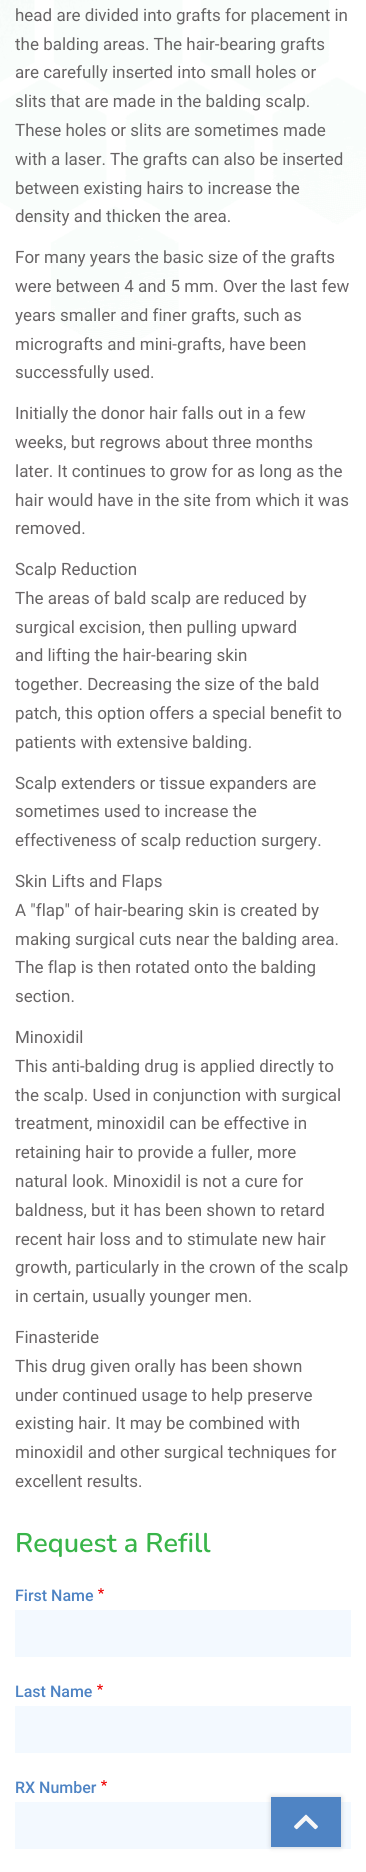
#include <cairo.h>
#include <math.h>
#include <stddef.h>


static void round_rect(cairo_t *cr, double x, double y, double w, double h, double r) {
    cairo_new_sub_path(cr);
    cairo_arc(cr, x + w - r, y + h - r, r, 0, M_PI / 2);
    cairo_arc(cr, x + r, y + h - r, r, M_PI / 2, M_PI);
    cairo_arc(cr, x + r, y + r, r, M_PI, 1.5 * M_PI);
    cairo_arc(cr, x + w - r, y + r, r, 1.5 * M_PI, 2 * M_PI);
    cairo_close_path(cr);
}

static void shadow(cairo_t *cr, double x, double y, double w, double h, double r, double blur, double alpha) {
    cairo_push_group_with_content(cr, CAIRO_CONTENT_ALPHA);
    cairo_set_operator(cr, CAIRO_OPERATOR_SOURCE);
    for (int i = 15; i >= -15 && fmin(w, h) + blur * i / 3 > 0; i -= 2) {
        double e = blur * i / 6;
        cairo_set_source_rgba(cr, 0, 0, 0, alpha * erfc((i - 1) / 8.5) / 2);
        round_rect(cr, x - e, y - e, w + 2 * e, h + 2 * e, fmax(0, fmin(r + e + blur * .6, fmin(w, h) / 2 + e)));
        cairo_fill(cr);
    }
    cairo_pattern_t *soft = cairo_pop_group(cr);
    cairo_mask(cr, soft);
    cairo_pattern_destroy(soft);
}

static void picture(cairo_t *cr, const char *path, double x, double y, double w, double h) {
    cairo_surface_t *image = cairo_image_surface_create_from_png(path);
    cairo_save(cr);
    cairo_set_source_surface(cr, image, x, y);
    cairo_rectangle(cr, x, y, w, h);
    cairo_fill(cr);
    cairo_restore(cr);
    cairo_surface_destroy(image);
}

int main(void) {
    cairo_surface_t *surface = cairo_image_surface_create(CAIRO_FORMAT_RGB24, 366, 1872);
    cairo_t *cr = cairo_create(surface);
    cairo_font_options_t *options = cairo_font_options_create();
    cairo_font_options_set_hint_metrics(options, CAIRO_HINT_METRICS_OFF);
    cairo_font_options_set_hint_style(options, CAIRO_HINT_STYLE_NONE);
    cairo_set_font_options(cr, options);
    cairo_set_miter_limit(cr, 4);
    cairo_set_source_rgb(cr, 1, 1, 1);
    cairo_paint(cr);
    picture(cr, "img1.png", 0, 0, 366, 351);
    cairo_select_font_face(cr, "Roboto", CAIRO_FONT_SLANT_NORMAL, CAIRO_FONT_WEIGHT_NORMAL);
    cairo_set_font_size(cr, 17);
    cairo_set_source_rgb(cr, 0.404, 0.392, 0.396);
    cairo_move_to(cr, 15, 21);
    cairo_show_text(cr, "head are divided into grafts for placement in");
    cairo_move_to(cr, 15, 50);
    cairo_show_text(cr, "the balding areas. The hair-bearing grafts");
    cairo_move_to(cr, 15, 78);
    cairo_show_text(cr, "are carefully inserted into small holes or");
    cairo_move_to(cr, 15, 107);
    cairo_show_text(cr, "slits that are made in the balding scalp.");
    cairo_move_to(cr, 15, 136);
    cairo_show_text(cr, "These holes or slits are sometimes made");
    cairo_move_to(cr, 15, 165);
    cairo_show_text(cr, "with a laser. The grafts can also be inserted");
    cairo_move_to(cr, 15, 194);
    cairo_show_text(cr, "between existing hairs to increase the");
    cairo_move_to(cr, 15, 222);
    cairo_show_text(cr, "density and thicken the area.");
    cairo_move_to(cr, 15, 263);
    cairo_show_text(cr, "For many years the basic size of the grafts");
    cairo_move_to(cr, 15, 292);
    cairo_show_text(cr, "were between 4 and 5 mm. Over the last few");
    cairo_move_to(cr, 15, 321);
    cairo_show_text(cr, "years smaller and finer grafts, such as");
    cairo_move_to(cr, 15, 350);
    cairo_show_text(cr, "micrografts and mini-grafts, have been");
    cairo_move_to(cr, 15, 378);
    cairo_show_text(cr, "successfully used.");
    cairo_move_to(cr, 15, 419);
    cairo_show_text(cr, "Initially the donor hair falls out in a few");
    cairo_move_to(cr, 15, 448);
    cairo_show_text(cr, "weeks, but regrows about three months");
    cairo_move_to(cr, 15, 477);
    cairo_show_text(cr, "later. It continues to grow for as long as the");
    cairo_move_to(cr, 15, 506);
    cairo_show_text(cr, "hair would have in the site from which it was");
    cairo_move_to(cr, 15, 534);
    cairo_show_text(cr, "removed.");
    cairo_move_to(cr, 15, 575);
    cairo_show_text(cr, "Scalp Reduction");
    cairo_move_to(cr, 15, 604);
    cairo_show_text(cr, "The areas of bald scalp are reduced by");
    cairo_move_to(cr, 15, 633);
    cairo_show_text(cr, "surgical excision, then pulling upward");
    cairo_move_to(cr, 15, 661);
    cairo_show_text(cr, "and lifting the hair-bearing skin");
    cairo_move_to(cr, 15, 690);
    cairo_show_text(cr, "together. Decreasing the size of the bald");
    cairo_move_to(cr, 15, 719);
    cairo_show_text(cr, "patch, this option offers a special benefit to");
    cairo_move_to(cr, 15, 748);
    cairo_show_text(cr, "patients with extensive balding.");
    cairo_move_to(cr, 15, 789);
    cairo_show_text(cr, "Scalp extenders or tissue expanders are");
    cairo_move_to(cr, 15, 817);
    cairo_show_text(cr, "sometimes used to increase the");
    cairo_move_to(cr, 15, 846);
    cairo_show_text(cr, "effectiveness of scalp reduction surgery.");
    cairo_move_to(cr, 15, 887);
    cairo_show_text(cr, "Skin Lifts and Flaps");
    cairo_move_to(cr, 15, 916);
    cairo_show_text(cr, "A \"flap\" of hair-bearing skin is created by");
    cairo_move_to(cr, 15, 945);
    cairo_show_text(cr, "making surgical cuts near the balding area.");
    cairo_move_to(cr, 15, 973);
    cairo_show_text(cr, "The flap is then rotated onto the balding");
    cairo_move_to(cr, 15, 1002);
    cairo_show_text(cr, "section.");
    cairo_move_to(cr, 15, 1043);
    cairo_show_text(cr, "Minoxidil");
    cairo_move_to(cr, 15, 1072);
    cairo_show_text(cr, "This anti-balding drug is applied directly to");
    cairo_move_to(cr, 15, 1101);
    cairo_show_text(cr, "the scalp. Used in conjunction with surgical");
    cairo_move_to(cr, 15, 1129);
    cairo_show_text(cr, "treatment, minoxidil can be effective in");
    cairo_move_to(cr, 15, 1158);
    cairo_show_text(cr, "retaining hair to provide a fuller, more");
    cairo_move_to(cr, 15, 1187);
    cairo_show_text(cr, "natural look. Minoxidil is not a cure for");
    cairo_move_to(cr, 15, 1216);
    cairo_show_text(cr, "baldness, but it has been shown to retard");
    cairo_move_to(cr, 15, 1245);
    cairo_show_text(cr, "recent hair loss and to stimulate new hair");
    cairo_move_to(cr, 15, 1273);
    cairo_show_text(cr, "growth, particularly in the crown of the scalp");
    cairo_move_to(cr, 15, 1302);
    cairo_show_text(cr, "in certain, usually younger men.");
    cairo_move_to(cr, 15, 1343);
    cairo_show_text(cr, "Finasteride");
    cairo_move_to(cr, 15, 1372);
    cairo_show_text(cr, "This drug given orally has been shown");
    cairo_move_to(cr, 15, 1401);
    cairo_show_text(cr, "under continued usage to help preserve");
    cairo_move_to(cr, 15, 1429);
    cairo_show_text(cr, "existing hair. It may be combined with");
    cairo_move_to(cr, 15, 1458);
    cairo_show_text(cr, "minoxidil and other surgical techniques for");
    cairo_move_to(cr, 15, 1487);
    cairo_show_text(cr, "excellent results.");
    cairo_select_font_face(cr, "Nunito SemiBold", CAIRO_FONT_SLANT_NORMAL, CAIRO_FONT_WEIGHT_NORMAL);
    cairo_set_font_size(cr, 27);
    cairo_set_source_rgb(cr, 0.224, 0.71, 0.29);
    cairo_move_to(cr, 15, 1552);
    cairo_show_text(cr, "Request a Refill");
    cairo_select_font_face(cr, "Roboto Medium", CAIRO_FONT_SLANT_NORMAL, CAIRO_FONT_WEIGHT_NORMAL);
    cairo_set_font_size(cr, 16);
    cairo_set_source_rgb(cr, 0.31, 0.518, 0.769);
    cairo_move_to(cr, 15, 1601);
    cairo_show_text(cr, "First Name");
    picture(cr, "img2.png", 98, 1588, 6, 6);
    cairo_set_source_rgb(cr, 0.953, 0.976, 1);
    cairo_rectangle(cr, 15, 1610, 336, 47);
    cairo_fill(cr);
    cairo_set_source_rgb(cr, 0.31, 0.518, 0.769);
    cairo_move_to(cr, 15, 1697);
    cairo_show_text(cr, "Last Name");
    picture(cr, "img2.png", 97, 1684, 6, 6);
    cairo_set_source_rgb(cr, 0.953, 0.976, 1);
    cairo_rectangle(cr, 15, 1706, 336, 47);
    cairo_fill(cr);
    cairo_set_source_rgb(cr, 0.31, 0.518, 0.769);
    cairo_move_to(cr, 15, 1793);
    cairo_show_text(cr, "RX Number");
    picture(cr, "img2.png", 101, 1780, 6, 6);
    cairo_set_source_rgb(cr, 0.953, 0.976, 1);
    cairo_rectangle(cr, 15, 1802, 336, 47);
    cairo_fill(cr);
    cairo_set_source_rgb(cr, 0, 0, 0);
    shadow(cr, 271, 1797, 70, 50, 0, 3, 0.16);
    cairo_set_source_rgb(cr, 0.31, 0.518, 0.769);
    cairo_rectangle(cr, 271, 1797, 70, 50);
    cairo_fill(cr);
    picture(cr, "img3.png", 294, 1814, 24, 16);
    cairo_surface_write_to_png(surface, "page.png");
    cairo_font_options_destroy(options);
    cairo_destroy(cr);
    cairo_surface_destroy(surface);
    return 0;
}
